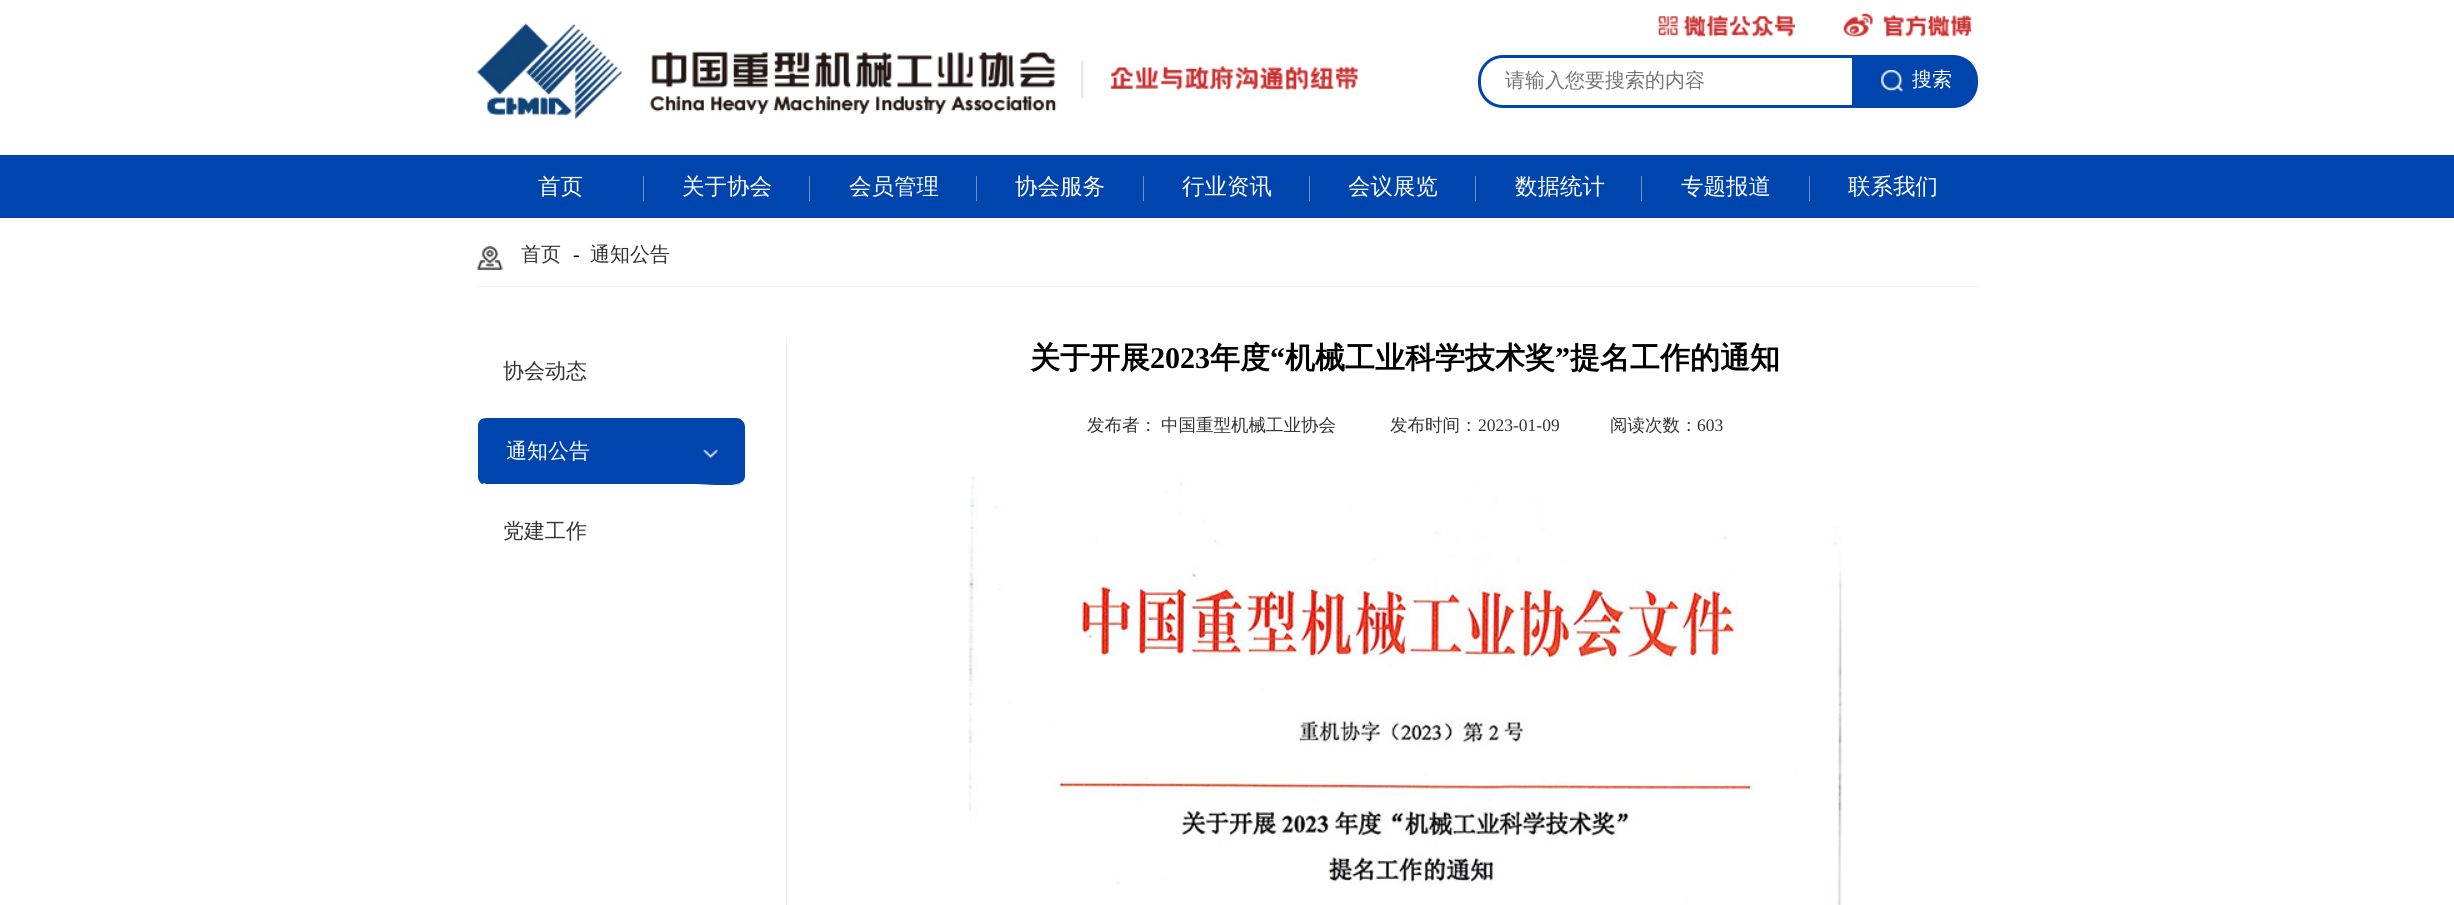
#include <cairo.h>
#include <math.h>
#include <stddef.h>


static void round_rect(cairo_t *cr, double x, double y, double w, double h, double r) {
    cairo_new_sub_path(cr);
    cairo_arc(cr, x + w - r, y + h - r, r, 0, M_PI / 2);
    cairo_arc(cr, x + r, y + h - r, r, M_PI / 2, M_PI);
    cairo_arc(cr, x + r, y + r, r, M_PI, 1.5 * M_PI);
    cairo_arc(cr, x + w - r, y + r, r, 1.5 * M_PI, 2 * M_PI);
    cairo_close_path(cr);
}

static void picture(cairo_t *cr, const char *path, double x, double y, double w, double h) {
    cairo_surface_t *image = cairo_image_surface_create_from_png(path);
    cairo_save(cr);
    cairo_set_source_surface(cr, image, x, y);
    cairo_rectangle(cr, x, y, w, h);
    cairo_fill(cr);
    cairo_restore(cr);
    cairo_surface_destroy(image);
}

int main(void) {
    cairo_surface_t *surface = cairo_image_surface_create(CAIRO_FORMAT_RGB24, 2454, 905);
    cairo_t *cr = cairo_create(surface);
    cairo_font_options_t *options = cairo_font_options_create();
    cairo_font_options_set_hint_metrics(options, CAIRO_HINT_METRICS_OFF);
    cairo_font_options_set_hint_style(options, CAIRO_HINT_STYLE_NONE);
    cairo_set_font_options(cr, options);
    cairo_set_miter_limit(cr, 4);
    cairo_set_source_rgb(cr, 1, 1, 1);
    cairo_paint(cr);
    picture(cr, "img1.png", 477, 23, 882, 96);
    picture(cr, "img2.png", 1658, 15, 137, 22);
    picture(cr, "img3.png", 1843, 13, 129, 24);
    cairo_new_path(cr);
    cairo_move_to(cr, 1503, 56.5);
    cairo_line_to(cr, 1853.5, 56.5);
    cairo_line_to(cr, 1853.5, 106.5);
    cairo_line_to(cr, 1503, 106.5);
    cairo_curve_to(cr, 1490, 106.5, 1479.5, 96, 1479.5, 83);
    cairo_line_to(cr, 1479.5, 80);
    cairo_curve_to(cr, 1479.5, 67, 1490, 56.5, 1503, 56.5);
    cairo_close_path(cr);
    cairo_set_source_rgb(cr, 0, 0.271, 0.678);
    cairo_set_line_width(cr, 3);
    cairo_stroke(cr);
    cairo_select_font_face(cr, "WenQuanYi Zen Hei Medium", CAIRO_FONT_SLANT_NORMAL, CAIRO_FONT_WEIGHT_NORMAL);
    cairo_set_font_size(cr, 20);
    cairo_set_source_rgb(cr, 0.459, 0.459, 0.459);
    cairo_move_to(cr, 1505, 87);
    cairo_show_text(cr, "请输入您要搜索的内容");
    cairo_set_source_rgb(cr, 0, 0.271, 0.678);
    cairo_new_path(cr);
    cairo_move_to(cr, 1855, 55);
    cairo_line_to(cr, 1953, 55);
    cairo_curve_to(cr, 1967, 55, 1978, 66, 1978, 80);
    cairo_line_to(cr, 1978, 83);
    cairo_curve_to(cr, 1978, 97, 1967, 108, 1953, 108);
    cairo_line_to(cr, 1855, 108);
    cairo_close_path(cr);
    cairo_fill(cr);
    picture(cr, "img4.png", 1881, 70, 22, 22);
    cairo_set_source_rgb(cr, 1, 1, 1);
    cairo_move_to(cr, 1912, 86);
    cairo_show_text(cr, "搜索");
    cairo_set_source_rgb(cr, 0, 0.271, 0.678);
    cairo_rectangle(cr, 0, 155, 2454, 63);
    cairo_fill(cr);
    cairo_set_font_size(cr, 22.5);
    cairo_set_source_rgb(cr, 1, 1, 1);
    cairo_move_to(cr, 538, 194);
    cairo_show_text(cr, "首页");
    cairo_set_source_rgb(cr, 0.435, 0.569, 0.773);
    cairo_rectangle(cr, 643, 176, 1, 25);
    cairo_fill(cr);
    cairo_set_source_rgb(cr, 1, 1, 1);
    cairo_move_to(cr, 682, 194);
    cairo_show_text(cr, "关于协会");
    cairo_set_source_rgb(cr, 0.435, 0.569, 0.773);
    cairo_rectangle(cr, 809, 176, 1, 25);
    cairo_fill(cr);
    cairo_set_source_rgb(cr, 1, 1, 1);
    cairo_move_to(cr, 849, 194);
    cairo_show_text(cr, "会员管理");
    cairo_set_source_rgb(cr, 0.435, 0.569, 0.773);
    cairo_rectangle(cr, 976, 176, 1, 25);
    cairo_fill(cr);
    cairo_set_source_rgb(cr, 1, 1, 1);
    cairo_move_to(cr, 1015, 194);
    cairo_show_text(cr, "协会服务");
    cairo_set_source_rgb(cr, 0.435, 0.569, 0.773);
    cairo_rectangle(cr, 1143, 176, 1, 25);
    cairo_fill(cr);
    cairo_set_source_rgb(cr, 1, 1, 1);
    cairo_move_to(cr, 1182, 194);
    cairo_show_text(cr, "行业资讯");
    cairo_set_source_rgb(cr, 0.435, 0.569, 0.773);
    cairo_rectangle(cr, 1309, 176, 1, 25);
    cairo_fill(cr);
    cairo_set_source_rgb(cr, 1, 1, 1);
    cairo_move_to(cr, 1348, 194);
    cairo_show_text(cr, "会议展览");
    cairo_set_source_rgb(cr, 0.435, 0.569, 0.773);
    cairo_rectangle(cr, 1475, 176, 1, 25);
    cairo_fill(cr);
    cairo_set_source_rgb(cr, 1, 1, 1);
    cairo_move_to(cr, 1515, 194);
    cairo_show_text(cr, "数据统计");
    cairo_set_source_rgb(cr, 0.435, 0.569, 0.773);
    cairo_rectangle(cr, 1641, 176, 1, 25);
    cairo_fill(cr);
    cairo_set_source_rgb(cr, 1, 1, 1);
    cairo_move_to(cr, 1681, 194);
    cairo_show_text(cr, "专题报道");
    cairo_set_source_rgb(cr, 0.435, 0.569, 0.773);
    cairo_rectangle(cr, 1809, 176, 1, 25);
    cairo_fill(cr);
    cairo_set_source_rgb(cr, 1, 1, 1);
    cairo_move_to(cr, 1848, 194);
    cairo_show_text(cr, "联系我们");
    picture(cr, "img5.png", 477, 246, 26, 24);
    cairo_set_source_rgb(cr, 0.933, 0.933, 0.933);
    cairo_rectangle(cr, 478, 286, 1500, 1);
    cairo_fill(cr);
    cairo_set_font_size(cr, 20);
    cairo_set_source_rgb(cr, 0.2, 0.2, 0.2);
    cairo_move_to(cr, 521, 261);
    cairo_show_text(cr, "首页");
    cairo_select_font_face(cr, "Liberation Serif", CAIRO_FONT_SLANT_NORMAL, CAIRO_FONT_WEIGHT_NORMAL);
    cairo_set_source_rgb(cr, 0, 0, 0);
    cairo_move_to(cr, 573, 261);
    cairo_show_text(cr, "-");
    cairo_select_font_face(cr, "WenQuanYi Zen Hei Medium", CAIRO_FONT_SLANT_NORMAL, CAIRO_FONT_WEIGHT_NORMAL);
    cairo_set_source_rgb(cr, 0.2, 0.2, 0.2);
    cairo_move_to(cr, 590, 261);
    cairo_show_text(cr, "通知公告");
    cairo_set_font_size(cr, 21);
    cairo_move_to(cr, 503, 378);
    cairo_show_text(cr, "协会动态");
    cairo_set_source_rgb(cr, 0, 0.271, 0.678);
    round_rect(cr, 478, 418, 267, 67, 9);
    cairo_fill(cr);
    cairo_set_source_rgb(cr, 1, 1, 1);
    cairo_new_path(cr);
    cairo_move_to(cr, 736, 485);
    cairo_curve_to(cr, 741, 485, 745, 481, 745, 476);
    cairo_curve_to(cr, 745, 490, 712, 484, 694, 484);
    cairo_line_to(cr, 486, 484);
    cairo_line_to(cr, 484, 483);
    cairo_line_to(cr, 482, 484);
    cairo_curve_to(cr, 483, 485, 484, 485, 486, 485);
    cairo_close_path(cr);
    cairo_fill(cr);
    cairo_set_source_rgb(cr, 0, 0.271, 0.678);
    cairo_new_path(cr);
    cairo_move_to(cr, 486, 418);
    cairo_curve_to(cr, 483, 418, 481, 421, 481, 426);
    cairo_line_to(cr, 481, 476);
    cairo_curve_to(cr, 481, 479, 482, 482, 484, 483);
    cairo_line_to(cr, 482, 484);
    cairo_curve_to(cr, 479, 482, 478, 479, 478, 476);
    cairo_line_to(cr, 478, 426);
    cairo_curve_to(cr, 478, 421, 481, 418, 486, 418);
    cairo_close_path(cr);
    cairo_fill(cr);
    cairo_set_source_rgb(cr, 1, 1, 1);
    cairo_move_to(cr, 506, 458);
    cairo_show_text(cr, "通知公告");
    picture(cr, "img6.png", 703, 449, 15, 9);
    cairo_set_source_rgb(cr, 0.2, 0.2, 0.2);
    cairo_move_to(cr, 503, 538);
    cairo_show_text(cr, "党建工作");
    cairo_set_source_rgb(cr, 0.933, 0.933, 0.933);
    cairo_rectangle(cr, 786, 338, 1, 567);
    cairo_fill(cr);
    cairo_select_font_face(cr, "WenQuanYi Zen Hei", CAIRO_FONT_SLANT_NORMAL, CAIRO_FONT_WEIGHT_BOLD);
    cairo_set_font_size(cr, 30);
    cairo_set_source_rgb(cr, 0, 0, 0);
    cairo_move_to(cr, 1030, 368);
    cairo_show_text(cr, "关于开展");
    cairo_select_font_face(cr, "Liberation Serif", CAIRO_FONT_SLANT_NORMAL, CAIRO_FONT_WEIGHT_BOLD);
    cairo_move_to(cr, 1150, 368);
    cairo_show_text(cr, "2023");
    cairo_select_font_face(cr, "WenQuanYi Zen Hei", CAIRO_FONT_SLANT_NORMAL, CAIRO_FONT_WEIGHT_BOLD);
    cairo_move_to(cr, 1210, 368);
    cairo_show_text(cr, "年度");
    cairo_select_font_face(cr, "Liberation Serif", CAIRO_FONT_SLANT_NORMAL, CAIRO_FONT_WEIGHT_BOLD);
    cairo_move_to(cr, 1270, 368);
    cairo_show_text(cr, "“");
    cairo_select_font_face(cr, "WenQuanYi Zen Hei", CAIRO_FONT_SLANT_NORMAL, CAIRO_FONT_WEIGHT_BOLD);
    cairo_move_to(cr, 1285, 368);
    cairo_show_text(cr, "机械工业科学技术奖");
    cairo_select_font_face(cr, "Liberation Serif", CAIRO_FONT_SLANT_NORMAL, CAIRO_FONT_WEIGHT_BOLD);
    cairo_move_to(cr, 1555, 368);
    cairo_show_text(cr, "”");
    cairo_select_font_face(cr, "WenQuanYi Zen Hei", CAIRO_FONT_SLANT_NORMAL, CAIRO_FONT_WEIGHT_BOLD);
    cairo_move_to(cr, 1570, 368);
    cairo_show_text(cr, "提名工作的通知");
    cairo_select_font_face(cr, "WenQuanYi Zen Hei Medium", CAIRO_FONT_SLANT_NORMAL, CAIRO_FONT_WEIGHT_NORMAL);
    cairo_set_font_size(cr, 17.5);
    cairo_set_source_rgb(cr, 0.2, 0.2, 0.2);
    cairo_move_to(cr, 1087, 431);
    cairo_show_text(cr, "发布者：");
    cairo_move_to(cr, 1161, 431);
    cairo_show_text(cr, "中国重型机械工业协会");
    cairo_move_to(cr, 1390, 431);
    cairo_show_text(cr, "发布时间：");
    cairo_select_font_face(cr, "Liberation Serif", CAIRO_FONT_SLANT_NORMAL, CAIRO_FONT_WEIGHT_NORMAL);
    cairo_move_to(cr, 1478, 431);
    cairo_show_text(cr, "2023-01-09");
    cairo_select_font_face(cr, "WenQuanYi Zen Hei Medium", CAIRO_FONT_SLANT_NORMAL, CAIRO_FONT_WEIGHT_NORMAL);
    cairo_move_to(cr, 1610, 431);
    cairo_show_text(cr, "阅读次数：");
    cairo_select_font_face(cr, "Liberation Serif", CAIRO_FONT_SLANT_NORMAL, CAIRO_FONT_WEIGHT_NORMAL);
    cairo_move_to(cr, 1697, 431);
    cairo_show_text(cr, "603");
    picture(cr, "img7.png", 967, 476, 875, 429);
    cairo_surface_write_to_png(surface, "page.png");
    cairo_font_options_destroy(options);
    cairo_destroy(cr);
    cairo_surface_destroy(surface);
    return 0;
}
